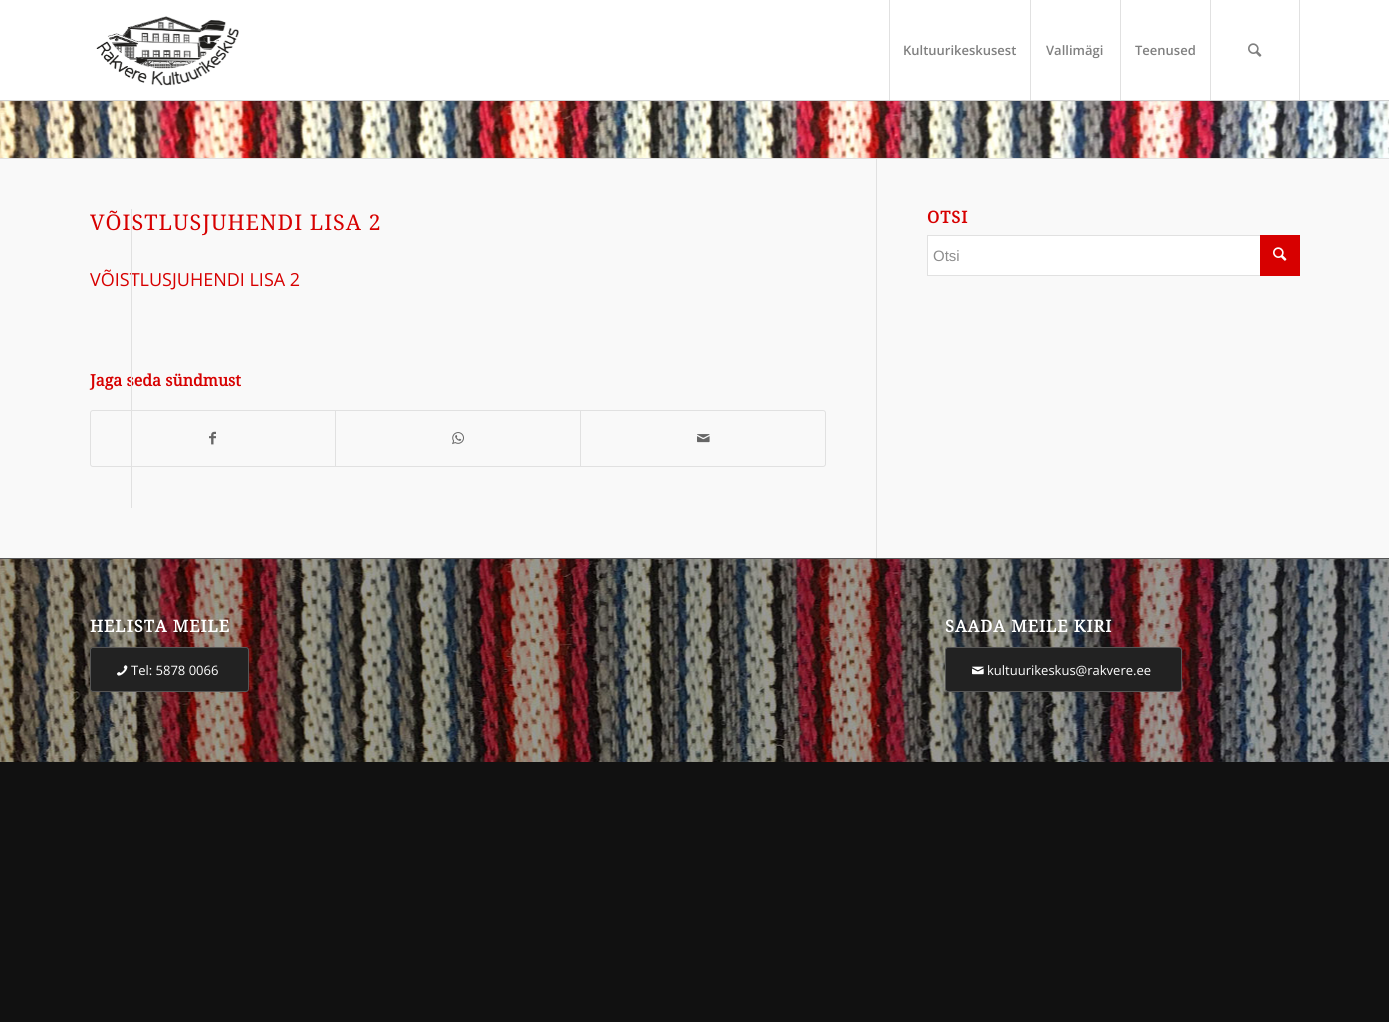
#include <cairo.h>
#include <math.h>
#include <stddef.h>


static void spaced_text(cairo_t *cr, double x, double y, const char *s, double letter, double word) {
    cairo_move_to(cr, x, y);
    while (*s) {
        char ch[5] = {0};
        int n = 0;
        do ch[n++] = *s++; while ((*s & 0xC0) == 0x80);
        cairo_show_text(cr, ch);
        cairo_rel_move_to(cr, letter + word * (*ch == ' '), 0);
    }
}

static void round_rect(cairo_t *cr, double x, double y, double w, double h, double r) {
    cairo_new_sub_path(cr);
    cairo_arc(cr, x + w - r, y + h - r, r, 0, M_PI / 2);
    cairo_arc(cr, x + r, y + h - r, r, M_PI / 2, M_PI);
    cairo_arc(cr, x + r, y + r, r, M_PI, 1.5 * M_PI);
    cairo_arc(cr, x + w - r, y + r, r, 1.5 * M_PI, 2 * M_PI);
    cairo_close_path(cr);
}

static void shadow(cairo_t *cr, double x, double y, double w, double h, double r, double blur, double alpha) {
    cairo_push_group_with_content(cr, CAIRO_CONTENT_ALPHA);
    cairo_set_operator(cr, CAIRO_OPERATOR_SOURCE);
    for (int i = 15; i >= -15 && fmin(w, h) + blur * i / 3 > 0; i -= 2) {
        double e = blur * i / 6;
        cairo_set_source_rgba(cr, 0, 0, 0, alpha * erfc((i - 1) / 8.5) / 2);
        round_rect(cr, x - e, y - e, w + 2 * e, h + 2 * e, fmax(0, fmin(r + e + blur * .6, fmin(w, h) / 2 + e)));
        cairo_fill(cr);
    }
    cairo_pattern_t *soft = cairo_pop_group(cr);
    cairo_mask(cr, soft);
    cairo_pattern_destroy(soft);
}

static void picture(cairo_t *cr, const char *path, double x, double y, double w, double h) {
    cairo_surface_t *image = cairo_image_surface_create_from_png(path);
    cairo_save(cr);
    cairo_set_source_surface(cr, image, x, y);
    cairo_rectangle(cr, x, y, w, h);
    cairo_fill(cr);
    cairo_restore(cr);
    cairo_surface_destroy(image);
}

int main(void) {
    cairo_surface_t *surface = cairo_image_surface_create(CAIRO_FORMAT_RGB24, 1389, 1022);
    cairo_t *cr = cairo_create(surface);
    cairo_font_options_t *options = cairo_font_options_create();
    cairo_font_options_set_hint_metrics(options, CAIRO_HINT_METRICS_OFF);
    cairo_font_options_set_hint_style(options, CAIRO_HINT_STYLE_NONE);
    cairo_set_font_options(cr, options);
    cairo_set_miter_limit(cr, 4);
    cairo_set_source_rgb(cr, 0.067, 0.067, 0.067);
    cairo_paint(cr);
    cairo_set_source_rgb(cr, 1, 1, 1);
    cairo_rectangle(cr, 0, 0, 1389, 100);
    cairo_fill(cr);
    picture(cr, "img3.png", 0, 101, 1389, 57);
    cairo_set_source_rgb(cr, 0.882, 0.882, 0.882);
    cairo_rectangle(cr, 0, 100, 1389, 1);
    cairo_fill(cr);
    cairo_save(cr);
    cairo_rectangle(cr, 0, 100, 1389, 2);
    cairo_clip(cr);
    cairo_set_source_rgb(cr, 0, 0, 0);
    shadow(cr, -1, -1, 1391, 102, 0, 1, 0.1);
    cairo_restore(cr);
    picture(cr, "img1.png", 90, 0, 157, 100);
    cairo_rectangle(cr, 889, 0, 1, 100);
    cairo_fill(cr);
    cairo_select_font_face(cr, "Open Sans SemiBold", CAIRO_FONT_SLANT_NORMAL, CAIRO_FONT_WEIGHT_NORMAL);
    cairo_set_font_size(cr, 13);
    cairo_set_source_rgb(cr, 0.502, 0.502, 0.502);
    cairo_move_to(cr, 903, 55);
    cairo_show_text(cr, "Kultuurikeskusest");
    cairo_set_source_rgb(cr, 0.882, 0.882, 0.882);
    cairo_rectangle(cr, 1030, 0, 1, 100);
    cairo_fill(cr);
    cairo_set_source_rgb(cr, 0.502, 0.502, 0.502);
    cairo_move_to(cr, 1046, 55);
    cairo_show_text(cr, "Vallimägi");
    cairo_set_source_rgb(cr, 0.882, 0.882, 0.882);
    cairo_rectangle(cr, 1120, 0, 1, 100);
    cairo_fill(cr);
    cairo_set_source_rgb(cr, 0.502, 0.502, 0.502);
    cairo_move_to(cr, 1135, 55);
    cairo_show_text(cr, "Teenused");
    cairo_set_source_rgb(cr, 0.882, 0.882, 0.882);
    cairo_rectangle(cr, 1299, 0, 1, 100);
    cairo_fill(cr);
    cairo_rectangle(cr, 1210, 0, 1, 100);
    cairo_fill(cr);
    picture(cr, "img2.png", 1248, 43, 14, 14);
    cairo_set_source_rgb(cr, 0.973, 0.973, 0.973);
    cairo_rectangle(cr, 0, 159, 1389, 399);
    cairo_fill(cr);
    cairo_set_source_rgb(cr, 0.882, 0.882, 0.882);
    cairo_rectangle(cr, 0, 158, 1389, 1);
    cairo_fill(cr);
    cairo_rectangle(cr, 876, 159, 1, 399);
    cairo_fill(cr);
    cairo_select_font_face(cr, "Droid Serif", CAIRO_FONT_SLANT_NORMAL, CAIRO_FONT_WEIGHT_NORMAL);
    cairo_set_font_size(cr, 21.6);
    cairo_set_source_rgb(cr, 0.843, 0, 0);
    spaced_text(cr, 90, 230, "VÕISTLUSJUHENDI LISA 2", 1, 0);
    cairo_select_font_face(cr, "Open Sans", CAIRO_FONT_SLANT_NORMAL, CAIRO_FONT_WEIGHT_NORMAL);
    cairo_set_font_size(cr, 18);
    cairo_move_to(cr, 90, 286);
    cairo_show_text(cr, "VÕISTLUSJUHENDI LISA 2");
    cairo_select_font_face(cr, "Droid Serif", CAIRO_FONT_SLANT_NORMAL, CAIRO_FONT_WEIGHT_BOLD);
    cairo_set_font_size(cr, 16);
    cairo_move_to(cr, 90, 386);
    cairo_show_text(cr, "Jaga seda sündmust");
    round_rect(cr, 90.5, 410.5, 735, 56, 2.5);
    cairo_set_source_rgb(cr, 0.882, 0.882, 0.882);
    cairo_set_line_width(cr, 1);
    cairo_stroke(cr);
    cairo_rectangle(cr, 131, 209, 1, 299);
    cairo_fill(cr);
    picture(cr, "img4.png", 209, 431, 7, 14);
    cairo_rectangle(cr, 335, 411, 1, 55);
    cairo_fill(cr);
    picture(cr, "img5.png", 452, 432, 12, 13);
    cairo_rectangle(cr, 580, 411, 1, 55);
    cairo_fill(cr);
    picture(cr, "img6.png", 697, 434, 13, 9);
    cairo_set_font_size(cr, 16.5);
    cairo_set_source_rgb(cr, 0.843, 0, 0);
    spaced_text(cr, 927, 223, "OTSI", 1, 0);
    cairo_set_source_rgb(cr, 1, 1, 1);
    cairo_rectangle(cr, 928, 236, 332, 39);
    cairo_fill(cr);
    cairo_save(cr);
    cairo_rectangle(cr, 877, 159, 423, 197);
    cairo_clip(cr);
    cairo_rectangle(cr, 927.5, 235.5, 426, 40);
    cairo_set_source_rgb(cr, 0.882, 0.882, 0.882);
    cairo_stroke(cr);
    cairo_restore(cr);
    cairo_select_font_face(cr, "Liberation Sans", CAIRO_FONT_SLANT_NORMAL, CAIRO_FONT_WEIGHT_NORMAL);
    cairo_set_font_size(cr, 15);
    cairo_set_source_rgb(cr, 0.553, 0.553, 0.553);
    cairo_move_to(cr, 933, 261);
    cairo_show_text(cr, "Otsi");
    cairo_set_source_rgb(cr, 0.843, 0, 0);
    cairo_rectangle(cr, 1260, 235, 40, 41);
    cairo_fill(cr);
    picture(cr, "img7.png", 1273, 247, 14, 14);
    picture(cr, "img8.png", 0, 559, 1389, 203);
    cairo_set_source_rgb(cr, 0.333, 0.333, 0.333);
    cairo_rectangle(cr, 0, 558, 1389, 1);
    cairo_fill(cr);
    cairo_select_font_face(cr, "Droid Serif", CAIRO_FONT_SLANT_NORMAL, CAIRO_FONT_WEIGHT_BOLD);
    cairo_set_font_size(cr, 16.5);
    cairo_set_source_rgb(cr, 1, 1, 1);
    spaced_text(cr, 90, 632, "HELISTA MEILE", 1, 0);
    cairo_set_source_rgb(cr, 0.133, 0.133, 0.133);
    round_rect(cr, 90.5, 647.5, 158, 44, 2.5);
    cairo_fill_preserve(cr);
    cairo_set_source_rgb(cr, 0.333, 0.333, 0.333);
    cairo_stroke(cr);
    picture(cr, "img9.png", 117, 665, 11, 11);
    cairo_select_font_face(cr, "Open Sans", CAIRO_FONT_SLANT_NORMAL, CAIRO_FONT_WEIGHT_NORMAL);
    cairo_set_font_size(cr, 13);
    cairo_set_source_rgb(cr, 1, 1, 1);
    cairo_move_to(cr, 131, 675);
    cairo_show_text(cr, "Tel: 5878 0066");
    cairo_select_font_face(cr, "Droid Serif", CAIRO_FONT_SLANT_NORMAL, CAIRO_FONT_WEIGHT_BOLD);
    cairo_set_font_size(cr, 16.5);
    spaced_text(cr, 945, 632, "SAADA MEILE KIRI", 1, 0);
    cairo_set_source_rgb(cr, 0.133, 0.133, 0.133);
    round_rect(cr, 945.5, 647.5, 236, 44, 2.5);
    cairo_fill_preserve(cr);
    cairo_set_source_rgb(cr, 0.333, 0.333, 0.333);
    cairo_stroke(cr);
    picture(cr, "img10.png", 972, 666, 12, 9);
    cairo_select_font_face(cr, "Open Sans", CAIRO_FONT_SLANT_NORMAL, CAIRO_FONT_WEIGHT_NORMAL);
    cairo_set_font_size(cr, 13);
    cairo_set_source_rgb(cr, 1, 1, 1);
    cairo_move_to(cr, 987, 675);
    cairo_show_text(cr, "kultuurikeskus@rakvere.ee");
    cairo_surface_write_to_png(surface, "page.png");
    cairo_font_options_destroy(options);
    cairo_destroy(cr);
    cairo_surface_destroy(surface);
    return 0;
}
